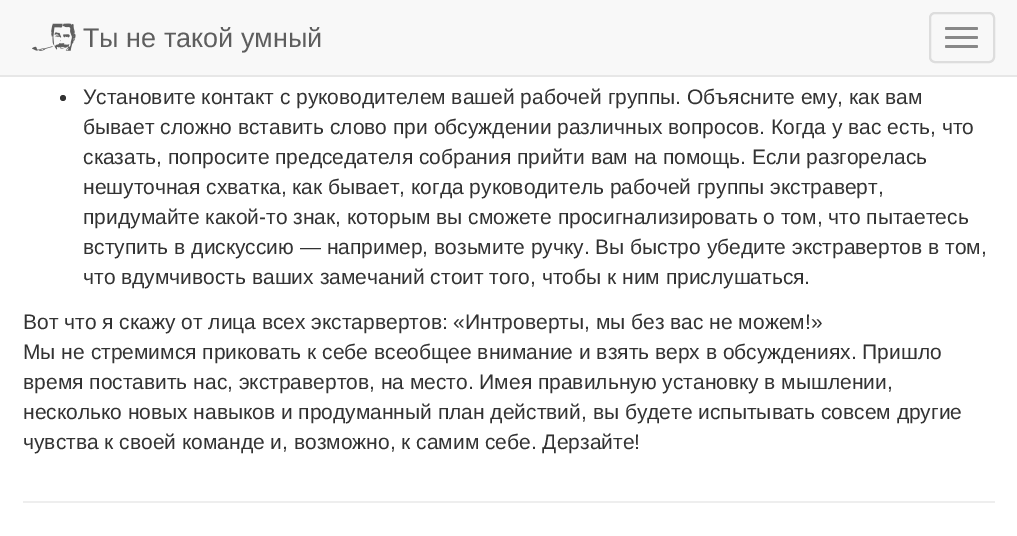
%!PS
<< /PageSize [1017 536] >> setpagedevice
/rgb { 3 { 255 div 3 1 roll } repeat setrgbcolor } def
/font { [ exch dup neg 0 0 3 -1 roll 0 0 ] selectfont } def
/text { moveto show } def
/circle { newpath 0 360 arc closepath } def
/roundrect { 5 dict begin { /r /h /w /y /x } { exch def } forall
  x r add y moveto x w add y 2 copy h add r arct x w add y h add x 1 index r arct
  x y h add x y r arct x y 2 copy exch w add exch r arct closepath end } def
/picture { 5 dict begin { /h /w /y /x /name } { exch def } forall
  gsave x y translate w h scale
  w h 8 [w 0 0 h 0 0] name (r) file false 3 colorimage grestore end } def
0 536 translate 1 -1 scale
4 setmiterlimit
255 255 255 rgb
0 0 1017 536 rectfill
248 248 248 rgb
0 0 1017 75 rectfill
231 231 231 rgb
0 75 1017 2 rectfill
(img_01.rgb) 32 23 44 28 picture
221 221 221 rgb
2 setlinewidth
930 13 64 49 5 roundrect stroke
136 136 136 rgb
945 27 33 3 1.5 roundrect fill
945 36 33 3 1.5 roundrect fill
945 45 33 3 1.5 roundrect fill
51 51 51 rgb
63 98 3 circle fill
238 238 238 rgb
23 501 972 2 rectfill
/LiberationSans-Regular 27 font
94 94 94 rgb
(Ты не такой умный) 83 47 text
/LiberationSans-Regular 21 font
51 51 51 rgb
(Установите контакт с руководителем вашей рабочей группы. Объясните ему, как вам) 83 104 text
(бывает сложно вставить слово при обсуждении различных вопросов. Когда у вас есть, что) 83 134 text
(сказать, попросите председателя собрания прийти вам на помощь. Если разгорелась) 83 164 text
(нешуточная схватка, как бывает, когда руководитель рабочей группы экстраверт,) 83 194 text
(придумайте какой-то знак, которым вы сможете просигнализировать о том, что пытаетесь) 83 224 text
(вступить в дискуссию — например, возьмите ручку. Вы быстро убедите экстравертов в том,) 83 254 text
(что вдумчивость ваших замечаний стоит того, чтобы к ним прислушаться.) 83 284 text
(Вот что я скажу от лица всех экстарвертов: «Интроверты, мы без вас не можем!») 23 329 text
(Мы не стремимся приковать к себе всеобщее внимание и взять верх в обсуждениях. Пришло) 23 359 text
(время поставить нас, экстравертов, на место. Имея правильную установку в мышлении,) 23 389 text
(несколько новых навыков и продуманный план действий, вы будете испытывать совсем другие) 23 419 text
(чувства к своей команде и, возможно, к самим себе. Дерзайте!) 23 449 text
showpage
